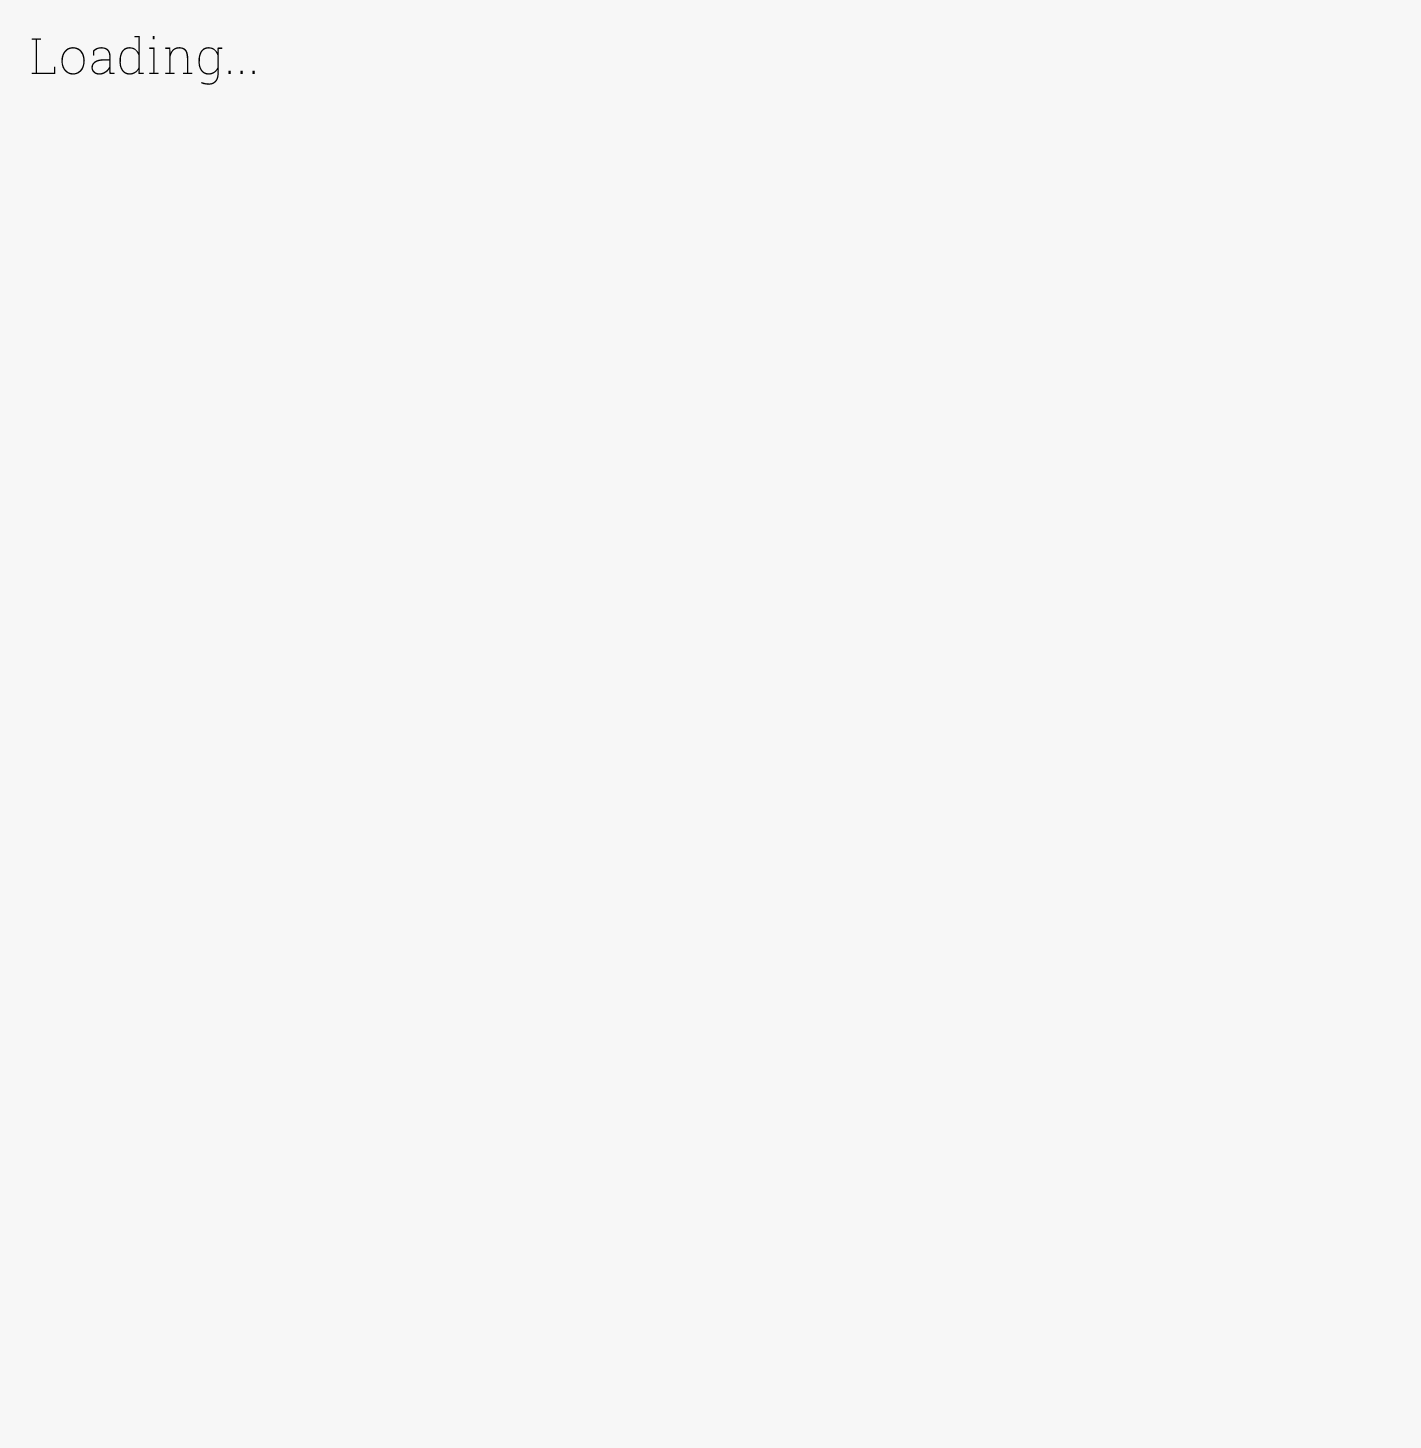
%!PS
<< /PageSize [1421 1448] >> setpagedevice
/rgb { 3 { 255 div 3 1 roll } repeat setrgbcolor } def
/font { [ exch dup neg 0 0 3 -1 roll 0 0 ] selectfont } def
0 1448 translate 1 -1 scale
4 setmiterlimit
247 247 247 rgb
0 0 1421 1448 rectfill
/RobotoSlab-Thin 50 font
0 0 0 rgb
30 74 moveto 1 0 (Loading...) ashow
showpage
